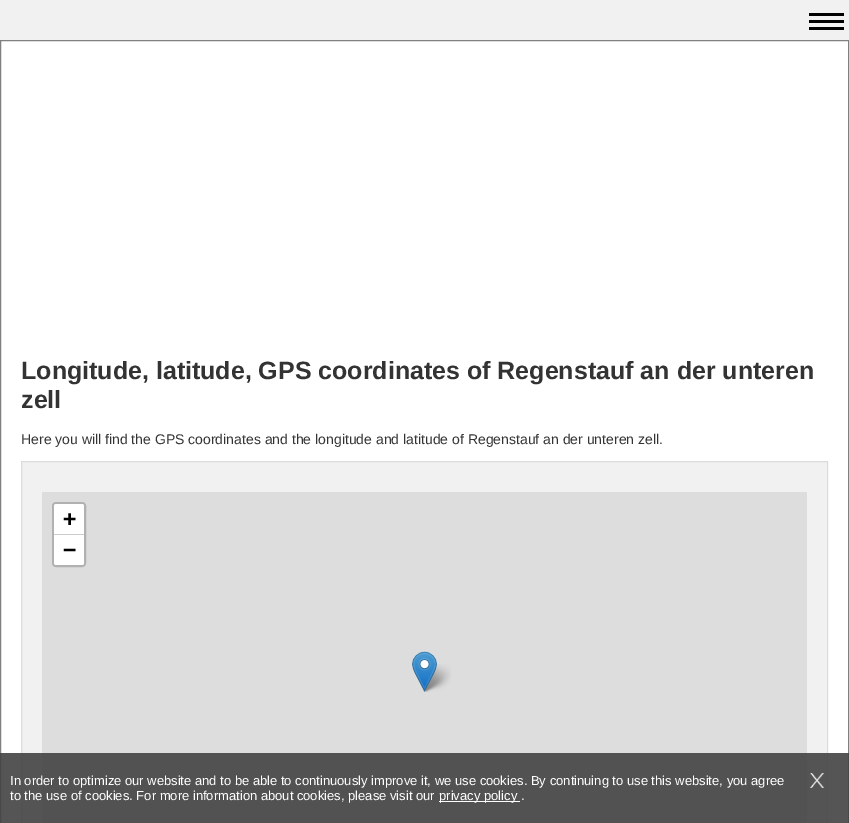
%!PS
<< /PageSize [849 823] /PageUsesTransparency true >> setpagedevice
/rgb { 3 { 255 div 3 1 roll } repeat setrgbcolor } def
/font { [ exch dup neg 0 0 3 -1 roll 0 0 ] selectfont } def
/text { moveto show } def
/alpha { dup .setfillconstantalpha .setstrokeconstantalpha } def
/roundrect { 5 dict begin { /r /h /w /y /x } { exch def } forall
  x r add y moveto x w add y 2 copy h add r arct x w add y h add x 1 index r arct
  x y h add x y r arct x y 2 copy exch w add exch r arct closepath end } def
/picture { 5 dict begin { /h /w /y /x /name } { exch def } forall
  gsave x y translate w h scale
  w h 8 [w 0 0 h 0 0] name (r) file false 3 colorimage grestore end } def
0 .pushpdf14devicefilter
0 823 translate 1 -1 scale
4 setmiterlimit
255 255 255 rgb
0 0 849 823 rectfill
241 241 241 rgb
0 0 849 40 rectfill
0 0 0 rgb
809 13 35 3 rectfill
809 20 35 3 rectfill
809 27 35 3 rectfill
128 128 128 rgb
0.5 40.5 848 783 rectstroke
241 241 241 rgb
21.5 461.5 moveto 806 0 rlineto 0 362 rlineto -806 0 rlineto closepath gsave fill grestore
220 220 220 rgb
stroke
221 221 221 rgb
42 492 765 331 rectfill
177 177 177 rgb
2 setlinewidth
53 503 32 63 3 roundrect stroke
255 255 255 rgb
56 504 moveto 26 0 rlineto 1 0 2 1 2 2 rcurveto 0 29 rlineto -30 0 rlineto 0 -29 rlineto 0 -1 1 -2 2 -2 rcurveto closepath fill
204 204 204 rgb
54 534 30 1 rectfill
255 255 255 rgb
54 535 moveto 30 0 rlineto 0 28 rlineto 0 1 -1 2 -2 2 rcurveto -26 0 rlineto -1 0 -2 -1 -2 -2 rcurveto closepath fill
(img_02.rgb) 422 664 29 28 picture
(img_01.rgb) 412 651 25 41 picture
0.9 alpha
67 67 67 rgb
0 753 849 70 rectfill
1 alpha
255 255 255 rgb
439 801 81 1 rectfill
(img_03.rgb) 810 773 14 15 picture
/LiberationSans-Bold 25 font
51 51 51 rgb
(Longitude, latitude, GPS coordinates of Regenstauf an der unteren) 21 379 text
(zell) 21 408 text
/LiberationSans-Regular 14 font
(Here you will find the GPS coordinates and the longitude and latitude of Regenstauf an der unteren zell.) 21 444 text
/DejaVuSansMono-Bold 22 font
0 0 0 rgb
(+) 63 526 text
(−) 63 557 text
/LiberationSans-Regular 13 font
255 255 255 rgb
(In order to optimize our website and to be able to continuously improve it, we use cookies. By continuing to use this website, you agree) 10 785 text
(to the use of cookies. For more information about cookies, please visit our) 10 800 text
(privacy policy .) 439 800 text
.poppdf14devicefilter showpage
